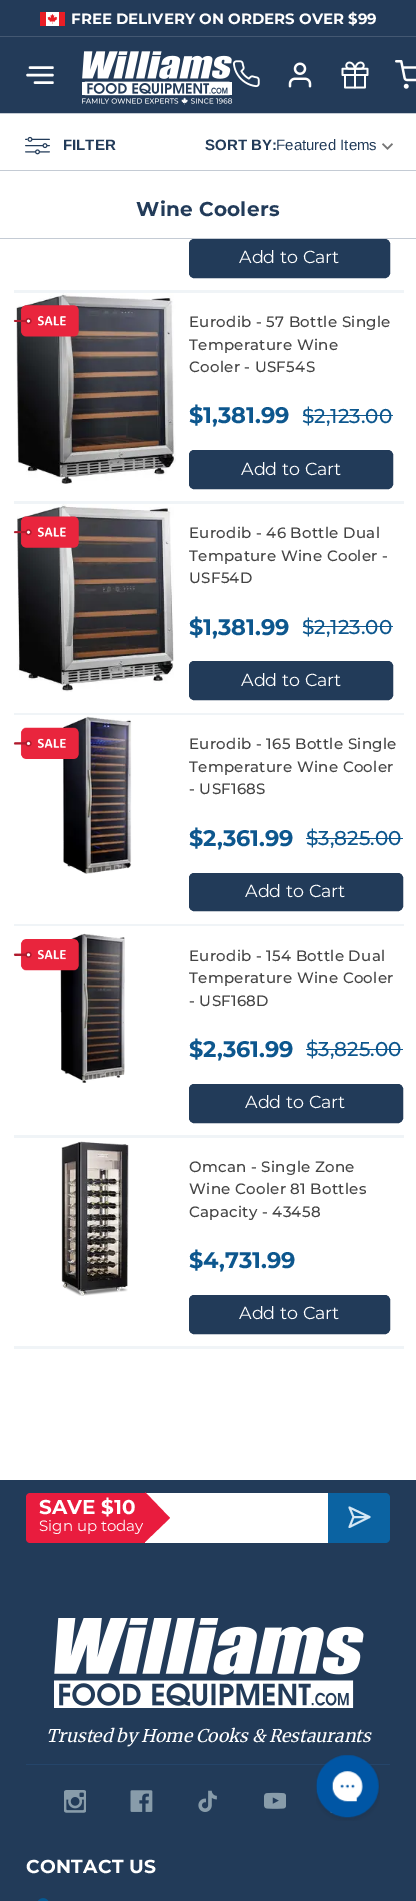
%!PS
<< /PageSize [416 1901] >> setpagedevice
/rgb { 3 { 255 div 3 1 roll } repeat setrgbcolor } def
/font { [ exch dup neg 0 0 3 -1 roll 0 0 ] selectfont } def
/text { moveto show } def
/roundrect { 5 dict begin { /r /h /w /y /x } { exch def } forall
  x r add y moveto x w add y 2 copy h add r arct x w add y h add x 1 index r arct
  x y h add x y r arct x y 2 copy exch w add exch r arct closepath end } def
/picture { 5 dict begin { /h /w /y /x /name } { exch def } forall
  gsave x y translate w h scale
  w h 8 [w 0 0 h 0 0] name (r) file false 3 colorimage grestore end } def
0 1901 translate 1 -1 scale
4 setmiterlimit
255 255 255 rgb
0 0 416 1901 rectfill
35 59 89 rgb
0 0 416 113 rectfill
68 88 114 rgb
0 36 416 1 rectfill
(img_01.rgb) 40 12 25 14 picture
255 255 255 rgb
2.5 setlinewidth
1 setlinecap
1 setlinejoin
27.5 75 moveto 25 0 rlineto 30 67.5 moveto 22.5 0 rlineto 35 82.5 moveto 17.5 0 rlineto stroke
(img_02.rgb) 82 51 151 54 picture
(img_03.rgb) 233 60 27 28 picture
(img_04.rgb) 288 62 24 26 picture
(img_05.rgb) 341 61 28 28 picture
(img_06.rgb) 395 60 21 29 picture
196 203 212 rgb
0 113 416 1 rectfill
0 238 416 1 rectfill
0 170 416 1 rectfill
(img_07.rgb) 25 136 25 19 picture
(img_08.rgb) 382 143 11 7 picture
240 244 247 rgb
14 290 390 3 rectfill
34 59 89 rgb
189.5 239.5 200 38 4.5 roundrect gsave fill grestore
1 setlinewidth
0 setlinecap
0 setlinejoin
stroke
240 244 247 rgb
14 501 390 3 rectfill
(img_09.rgb) 16 293 160 191 picture
(img_10.rgb) 13 305 66 32 picture
13 87 142 rgb
303 415 90 1 rectfill
34 59 89 rgb
189.5 450.5 203 38 4.5 roundrect gsave fill grestore
stroke
240 244 247 rgb
14 713 390 2 rectfill
(img_11.rgb) 17 504 157 188 picture
(img_12.rgb) 13 516 66 32 picture
13 87 142 rgb
303 626 90 1 rectfill
34 59 89 rgb
189.5 661.5 203 38 4.5 roundrect gsave fill grestore
stroke
240 244 247 rgb
14 924 390 2 rectfill
(img_14.rgb) 62 716 70 158 picture
(img_13.rgb) 13 727 66 32 picture
13 87 142 rgb
306 838 97 1 rectfill
34 59 89 rgb
189.5 873.5 213 37 4.5 roundrect gsave fill grestore
stroke
240 244 247 rgb
14 1135 390 3 rectfill
(img_16.rgb) 60 933 65 150 picture
(img_15.rgb) 13 939 66 32 picture
13 87 142 rgb
306 1049 97 1 rectfill
34 59 89 rgb
189.5 1084.5 213 38 4.5 roundrect gsave fill grestore
stroke
240 244 247 rgb
14 1346 390 3 rectfill
(img_17.rgb) 61 1141 68 155 picture
34 59 89 rgb
189.5 1295.5 200 38 4.5 roundrect gsave fill grestore
stroke
0 1480 416 421 rectfill
233 28 62 rgb
30 1493 moveto 115 0 rlineto 0 50 rlineto -115 0 rlineto -2 0 -4 -2 -4 -4 rcurveto 0 -42 rlineto 0 -2 2 -4 4 -4 rcurveto closepath fill
255 255 255 rgb
145 1493 183 50 rectfill
233 28 62 rgb
145 1542 moveto 0 -50 rlineto 25 26 rlineto closepath fill
11 99 162 rgb
328 1493 moveto 57 0 rlineto 3 0 5 2 5 5 rcurveto 0 40 rlineto 0 3 -2 5 -5 5 rcurveto -57 0 rlineto closepath fill
213 231 244 rgb
1.9 setlinewidth
1 setlinecap
1 setlinejoin
369.5 1517 moveto -16 0 rlineto 369.5 1517 moveto -20 10 rlineto 4 -10 rlineto -4 -9.5 rlineto closepath stroke
(img_18.rgb) 54 1618 310 90 picture
37 69 106 rgb
26 1764 364 1 rectfill
(img_19.rgb) 64 1790 22 23 picture
(img_20.rgb) 130 1790 23 22 picture
(img_21.rgb) 198 1790 19 22 picture
(img_22.rgb) 264 1792 22 17 picture
(img_23.rgb) 330 1811 3 2 picture
(img_24.rgb) 38 1898 11 3 picture
(img_25.rgb) 316 1755 64 66 picture
/Montserrat-Bold 15 font
255 255 255 rgb
(FREE DELIVERY ON ORDERS OVER $99) 71 24 text
/LiberationSans-Bold 15 font
34 59 89 rgb
(FILTER) 63 150 text
(SORT BY:) 205 150 text
/LiberationSans-Regular 15 font
(Featured Items) 276 150 text
/Montserrat-Bold 20 font
136 216 moveto 0.3 0 (Wine Coolers) ashow
/Montserrat-Regular 17.5 font
255 255 255 rgb
(Add to Cart) 239 263 text
/Montserrat-Medium 15 font
68 68 68 rgb
189 327 moveto 0.3 0 (Eurodib - 57 Bottle Single) ashow
189 350 moveto 0.3 0 (Temperature Wine) ashow
189 372 moveto 0.3 0 (Cooler - USF54S) ashow
/Montserrat-Bold 22.5 font
13 87 142 rgb
($1,381.99) 189 423 text
/Montserrat-Medium 20 font
($2,123.00) 302 423 text
/Montserrat-Regular 17.5 font
255 255 255 rgb
(Add to Cart) 241 475 text
/Montserrat-Medium 15 font
68 68 68 rgb
189 538 moveto 0.3 0 (Eurodib - 46 Bottle Dual) ashow
189 561 moveto 0.3 0 (Tempature Wine Cooler -) ashow
189 583 moveto 0.3 0 (USF54D) ashow
/Montserrat-Bold 22.5 font
13 87 142 rgb
($1,381.99) 189 635 text
/Montserrat-Medium 20 font
($2,123.00) 302 634 text
/Montserrat-Regular 17.5 font
255 255 255 rgb
(Add to Cart) 241 686 text
/Montserrat-Medium 15 font
68 68 68 rgb
189 749 moveto 0.3 0 (Eurodib - 165 Bottle Single) ashow
189 772 moveto 0.3 0 (Temperature Wine Cooler) ashow
189 794 moveto 0.3 0 (- USF168S) ashow
/Montserrat-Bold 22.5 font
13 87 142 rgb
($2,361.99) 189 846 text
/Montserrat-Medium 20 font
($3,825.00) 306 845 text
/Montserrat-Regular 17.5 font
255 255 255 rgb
(Add to Cart) 245 897 text
/Montserrat-Medium 15 font
68 68 68 rgb
189 961 moveto 0.3 0 (Eurodib - 154 Bottle Dual) ashow
189 983 moveto 0.3 0 (Temperature Wine Cooler) ashow
189 1006 moveto 0.3 0 (- USF168D) ashow
/Montserrat-Bold 22.5 font
13 87 142 rgb
($2,361.99) 189 1057 text
/Montserrat-Medium 20 font
($3,825.00) 306 1056 text
/Montserrat-Regular 17.5 font
255 255 255 rgb
(Add to Cart) 245 1108 text
/Montserrat-Medium 15 font
68 68 68 rgb
189 1172 moveto 0.3 0 (Omcan - Single Zone) ashow
189 1194 moveto 0.3 0 (Wine Cooler 81 Bottles) ashow
189 1217 moveto 0.3 0 (Capacity - 43458) ashow
/Montserrat-Bold 22.5 font
13 87 142 rgb
($4,731.99) 189 1268 text
/Montserrat-Regular 17.5 font
255 255 255 rgb
(Add to Cart) 239 1319 text
/Montserrat-Bold 20 font
(SAVE $10) 39 1514 text
/Montserrat-Regular 15 font
(Sign up today) 39 1531 text
/Merriweather-LightItalic 17.5 font
(Trusted by Home Cooks & Restaurants) 46 1742 text
/Montserrat-Bold 18.75 font
26 1873 moveto 0.3 0 (CONTACT US) ashow
showpage
